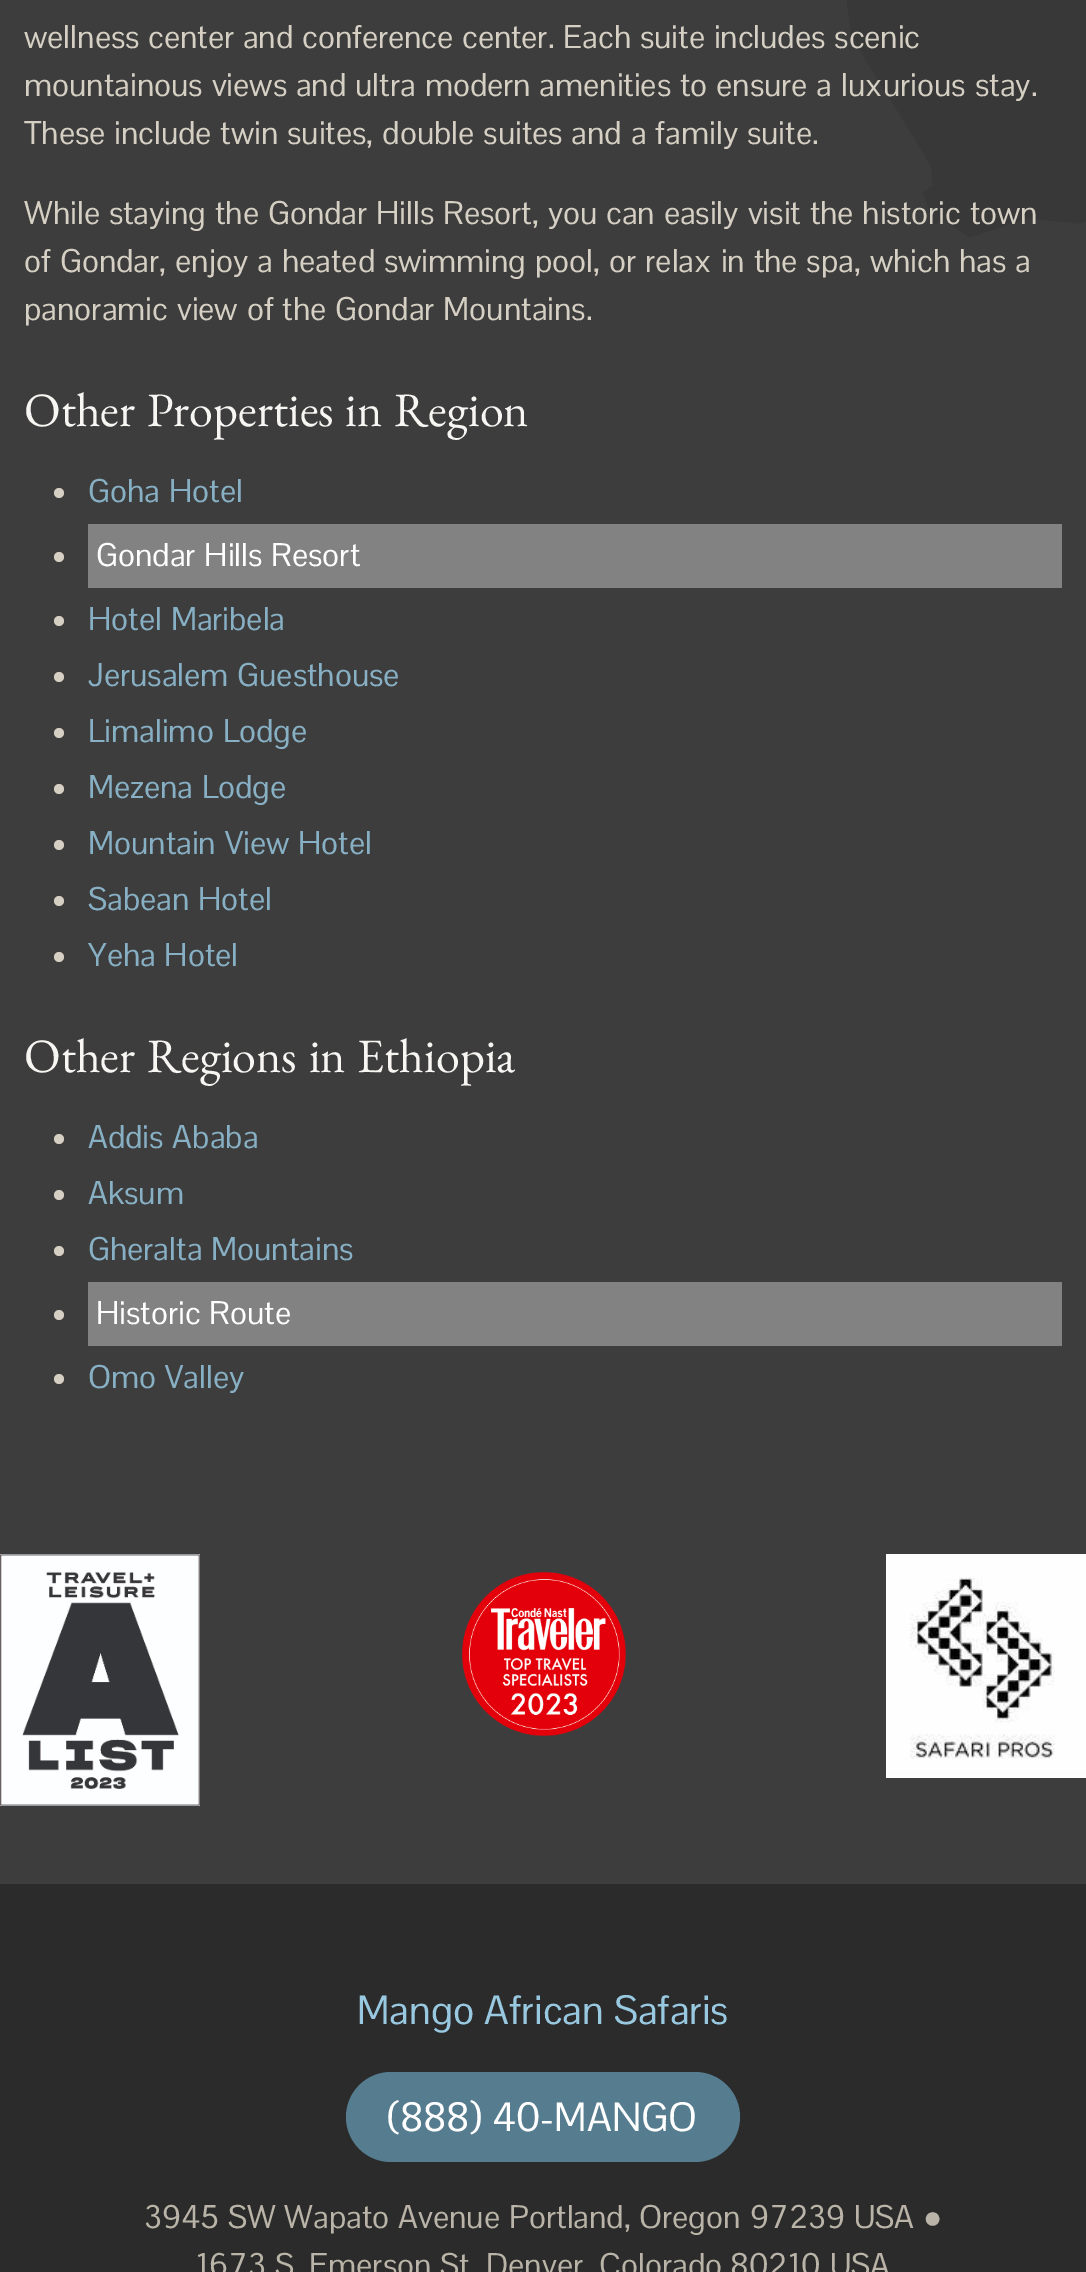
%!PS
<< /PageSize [1086 2272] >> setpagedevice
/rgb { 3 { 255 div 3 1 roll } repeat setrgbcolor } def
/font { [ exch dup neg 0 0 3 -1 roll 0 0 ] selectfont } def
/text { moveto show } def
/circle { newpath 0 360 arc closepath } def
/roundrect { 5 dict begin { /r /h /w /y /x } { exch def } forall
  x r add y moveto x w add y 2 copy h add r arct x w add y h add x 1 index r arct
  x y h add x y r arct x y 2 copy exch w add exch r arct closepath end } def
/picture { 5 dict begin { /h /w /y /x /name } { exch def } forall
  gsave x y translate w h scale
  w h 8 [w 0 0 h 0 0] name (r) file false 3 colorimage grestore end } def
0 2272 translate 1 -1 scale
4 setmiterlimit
62 61 61 rgb
0 0 1086 2272 rectfill
(img_01.rgb) 847 0 239 237 picture
213 208 195 rgb
59 493 5 circle fill
130 130 130 rgb
88 524 974 64 rectfill
213 208 195 rgb
59 557 5 circle fill
59 621 5 circle fill
59 677 5 circle fill
59 733 5 circle fill
59 789 5 circle fill
59 845 5 circle fill
59 901 5 circle fill
59 957 5 circle fill
59 1139 5 circle fill
59 1195 5 circle fill
59 1251 5 circle fill
130 130 130 rgb
88 1282 974 64 rectfill
213 208 195 rgb
59 1315 5 circle fill
59 1379 5 circle fill
(img_02.rgb) 0 1554 200 252 picture
(img_03.rgb) 462 1572 164 164 picture
(img_04.rgb) 886 1554 200 224 picture
43 43 43 rgb
0 1884 1086 388 rectfill
86 124 143 rgb
346 2072 394 90 45 roundrect fill
/PontanoSans-Regular 32 font
213 208 195 rgb
24 48 moveto 2 0 32 (wellness center and conference center. Each suite includes scenic) widthshow
24 96 moveto 2 0 32 (mountainous views and ultra modern amenities to ensure a luxurious stay.) widthshow
24 144 moveto 2 0 32 (These include twin suites, double suites and a family suite.) widthshow
24 224 moveto 2 0 32 (While staying the Gondar Hills Resort, you can easily visit the historic town) widthshow
24 272 moveto 2 0 32 (of Gondar, enjoy a heated swimming pool, or relax in the spa, which has a) widthshow
24 320 moveto 2 0 32 (panoramic view of the Gondar Mountains.) widthshow
/EBGaramond-Regular 48 font
247 246 243 rgb
24 426 moveto 2 0 32 (Other Properties in Region) widthshow
/PontanoSans-Regular 32 font
135 176 196 rgb
88 502 moveto 2 0 32 (Goha Hotel) widthshow
255 255 255 rgb
96 566 moveto 2 0 32 (Gondar Hills Resort) widthshow
135 176 196 rgb
88 630 moveto 2 0 32 (Hotel Maribela) widthshow
88 686 moveto 2 0 32 (Jerusalem Guesthouse) widthshow
88 742 moveto 2 0 32 (Limalimo Lodge) widthshow
88 798 moveto 2 0 32 (Mezena Lodge) widthshow
88 854 moveto 2 0 32 (Mountain View Hotel) widthshow
88 910 moveto 2 0 32 (Sabean Hotel) widthshow
88 966 moveto 2 0 32 (Yeha Hotel) widthshow
/EBGaramond-Regular 48 font
247 246 243 rgb
24 1072 moveto 2 0 32 (Other Regions in Ethiopia) widthshow
/PontanoSans-Regular 32 font
135 176 196 rgb
88 1148 moveto 2 0 32 (Addis Ababa) widthshow
(Aksum) 88 1204 text
88 1260 moveto 2 0 32 (Gheralta Mountains) widthshow
255 255 255 rgb
96 1324 moveto 2 0 32 (Historic Route) widthshow
135 176 196 rgb
88 1388 moveto 2 0 32 (Omo Valley) widthshow
/PontanoSans-Regular 40 font
153 201 225 rgb
357 2024 moveto 2 0 32 (Mango African Safaris) widthshow
255 255 255 rgb
388 2131 moveto 2 0 32 (\(888\) 40-MANGO) widthshow
/PontanoSans-Regular 32 font
185 180 167 rgb
144 2228 moveto 2 0 32 (3945 SW Wapato Avenue) widthshow
(Portland,) 509 2228 text
(Oregon) 639 2228 text
(97239) 750 2228 text
(USA) 854 2228 text
/LiberationSans-Regular 32 font
(●) 923 2228 text
/PontanoSans-Regular 32 font
196 2276 moveto 2 0 32 (1673 S. Emerson St) widthshow
(Denver) 486 2276 text
(Colorado) 599 2276 text
(80210) 730 2276 text
(USA) 830 2276 text
showpage
